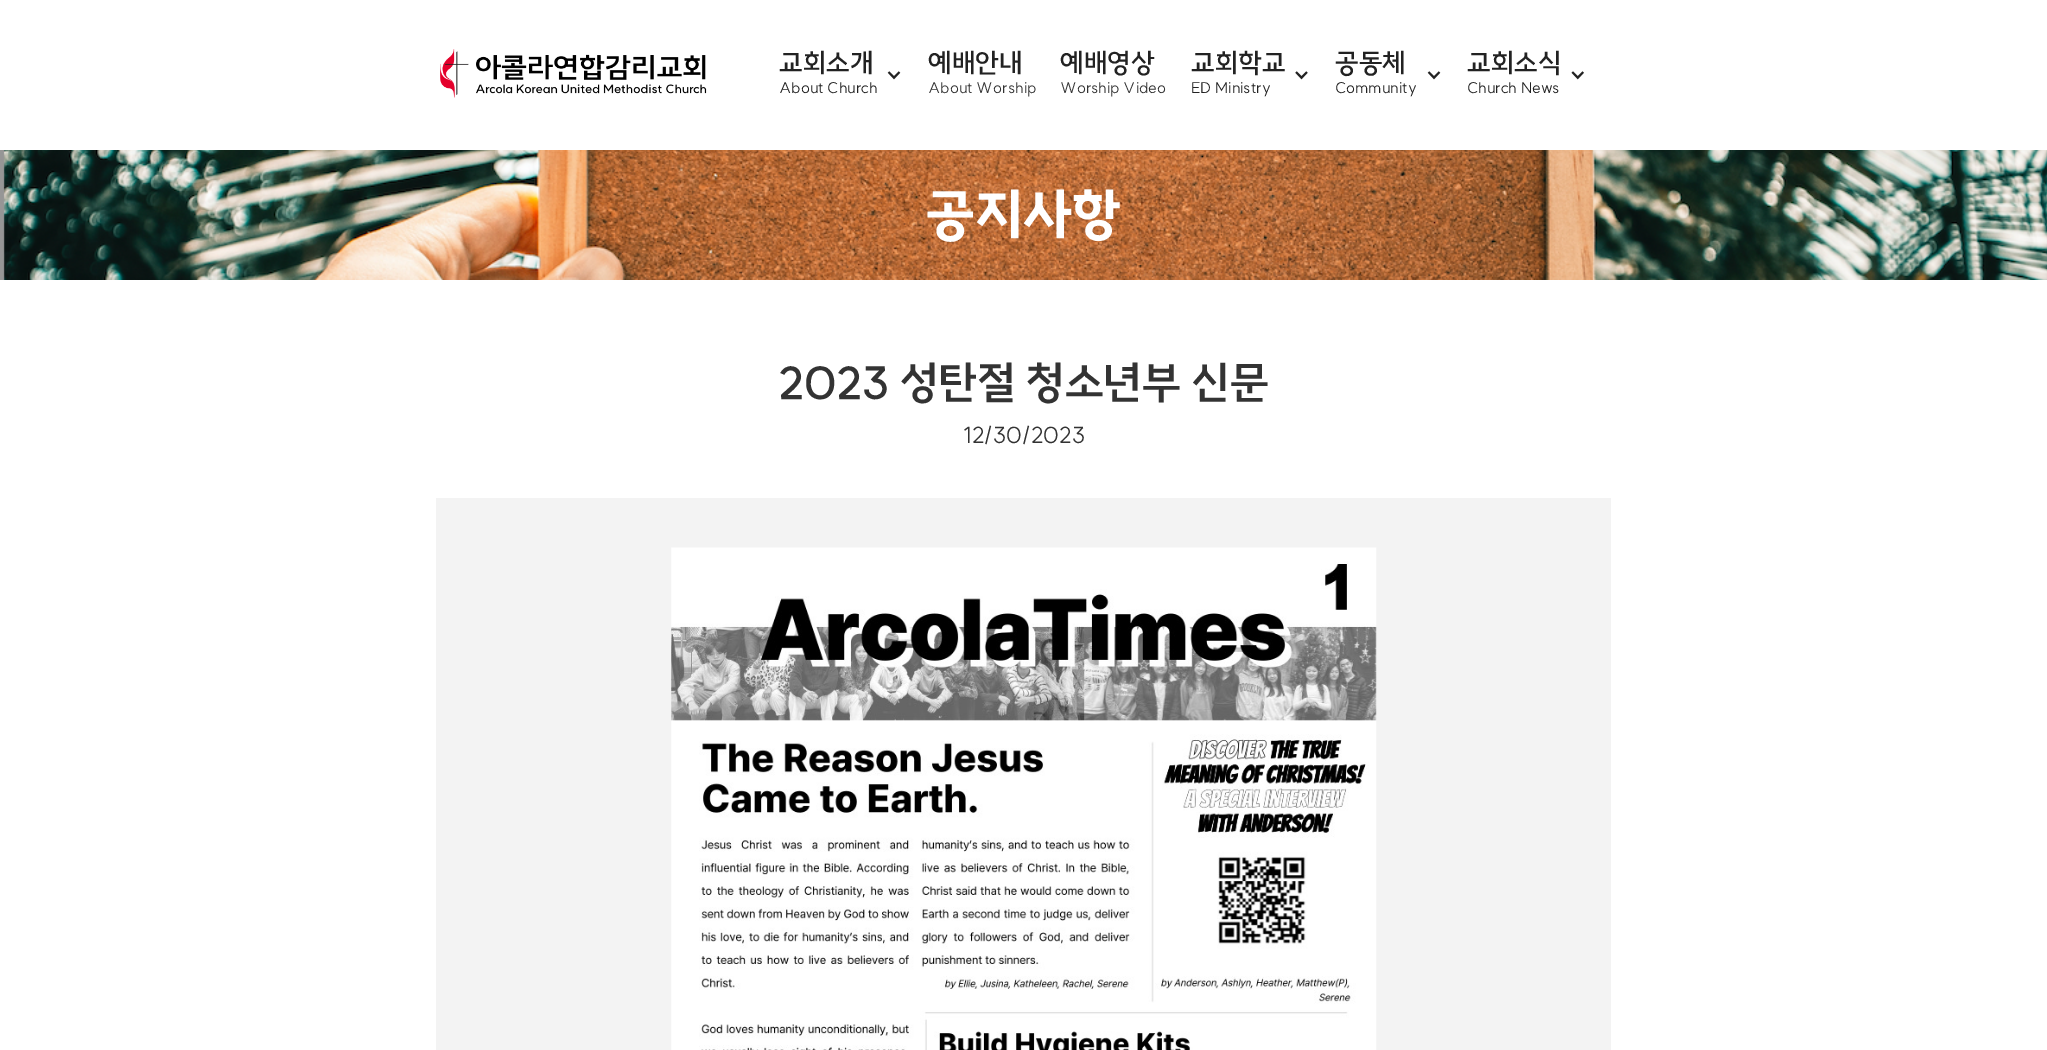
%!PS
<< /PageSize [2047 1050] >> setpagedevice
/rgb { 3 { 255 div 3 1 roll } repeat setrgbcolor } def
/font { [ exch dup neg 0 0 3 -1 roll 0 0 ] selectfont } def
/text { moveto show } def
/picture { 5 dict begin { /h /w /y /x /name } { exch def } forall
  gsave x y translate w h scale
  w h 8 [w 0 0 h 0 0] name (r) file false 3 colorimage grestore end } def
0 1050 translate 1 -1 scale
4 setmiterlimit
255 255 255 rgb
0 0 2047 1050 rectfill
(img_01.rgb) 440 49 267 49 picture
(img_02.rgb) 887 71 14 9 picture
(img_03.rgb) 1295 71 13 9 picture
(img_02.rgb) 1427 71 14 9 picture
(img_04.rgb) 1571 71 13 9 picture
(img_05.rgb) 0 150 2047 130 picture
243 243 243 rgb
436 498 1175 552 rectfill
(img_06.rgb) 671 547 706 503 picture
/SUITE-SemiBold 27.5 font
34 34 34 rgb
(교회소개) 779 73 text
/SUITE-Regular 15 font
(About Church) 779 93 text
/SUITE-SemiBold 27.5 font
(예배안내) 928 73 text
/SUITE-Regular 15 font
51 51 51 rgb
(About Worship) 928 93 text
/SUITE-SemiBold 27.5 font
34 34 34 rgb
(예배영상) 1060 73 text
/SUITE-Regular 15 font
51 51 51 rgb
(Worship Video) 1060 93 text
/SUITE-SemiBold 27.5 font
34 34 34 rgb
(교회학교) 1191 73 text
/SUITE-Regular 15 font
(ED Ministry) 1191 93 text
/SUITE-SemiBold 27.5 font
(공동체) 1335 73 text
/SUITE-Regular 15 font
(Community) 1335 93 text
/SUITE-SemiBold 27.5 font
(교회소식) 1467 73 text
/SUITE-Regular 15 font
(Church News) 1467 93 text
/SUITE-Black 56 font
255 255 255 rgb
(공지사항) 926 235 text
/SUITE-Bold 45 font
51 51 51 rgb
(2023 성탄절 청소년부 신문) 778 399 text
/SUITE-Regular 22.5 font
(12/30/2023) 963 443 text
showpage
